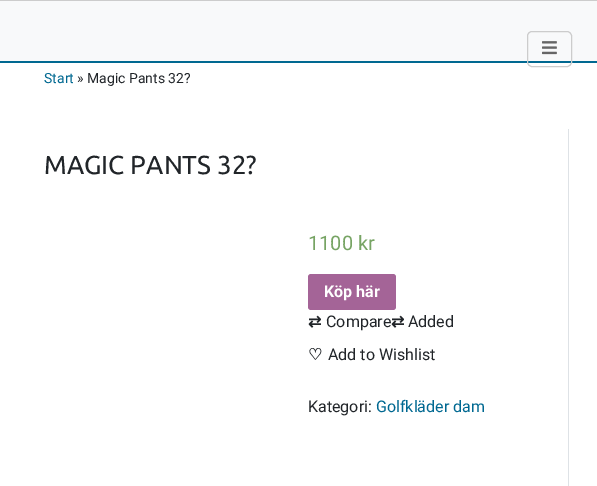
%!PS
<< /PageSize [597 486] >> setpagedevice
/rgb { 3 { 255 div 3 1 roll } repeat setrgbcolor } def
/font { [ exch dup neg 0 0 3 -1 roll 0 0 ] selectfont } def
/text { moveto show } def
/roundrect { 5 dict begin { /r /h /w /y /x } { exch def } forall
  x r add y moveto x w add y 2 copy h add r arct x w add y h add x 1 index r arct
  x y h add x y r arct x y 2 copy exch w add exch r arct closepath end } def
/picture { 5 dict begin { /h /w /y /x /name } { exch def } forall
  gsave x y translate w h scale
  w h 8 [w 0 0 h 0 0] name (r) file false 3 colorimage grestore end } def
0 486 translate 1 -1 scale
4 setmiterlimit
255 255 255 rgb
0 0 597 486 rectfill
204 204 204 rgb
0 0 597 1 rectfill
248 249 250 rgb
0 1 597 60 rectfill
0 104 145 rgb
0 61 597 2 rectfill
204 204 204 rgb
527.5 31.5 44 35 4.5 roundrect stroke
(img_01.rgb) 542 41 15 14 picture
222 226 230 rgb
568 129 1 357 rectfill
164 100 151 rgb
308 274 88 36 3 roundrect fill
/Roboto-Regular 14 font
0 104 145 rgb
(Start) 44 83 text
33 37 41 rgb
(» Magic Pants 32?) 77 83 text
/Ubuntu-Regular 26 font
(MAGIC PANTS 32?) 44 174 text
/Roboto-Regular 20 font
119 164 100 rgb
(1100 kr) 308 250 text
/Roboto-Bold 16 font
255 255 255 rgb
(Köp här) 324 297 text
/DejaVuSans-Bold 16 font
33 37 41 rgb
(⇄) 308 327 text
/Roboto-Regular 16 font
(Compare) 326 327 text
/DejaVuSans-Bold 16 font
(⇄) 391 327 text
/Roboto-Regular 16 font
(Added) 408 327 text
/DejaVuSans-Bold 16 font
(♡) 308 360 text
/Roboto-Regular 16 font
(Add to Wishlist) 328 360 text
(Kategori:) 308 412 text
0 104 145 rgb
(Golfkläder dam) 376 412 text
showpage
